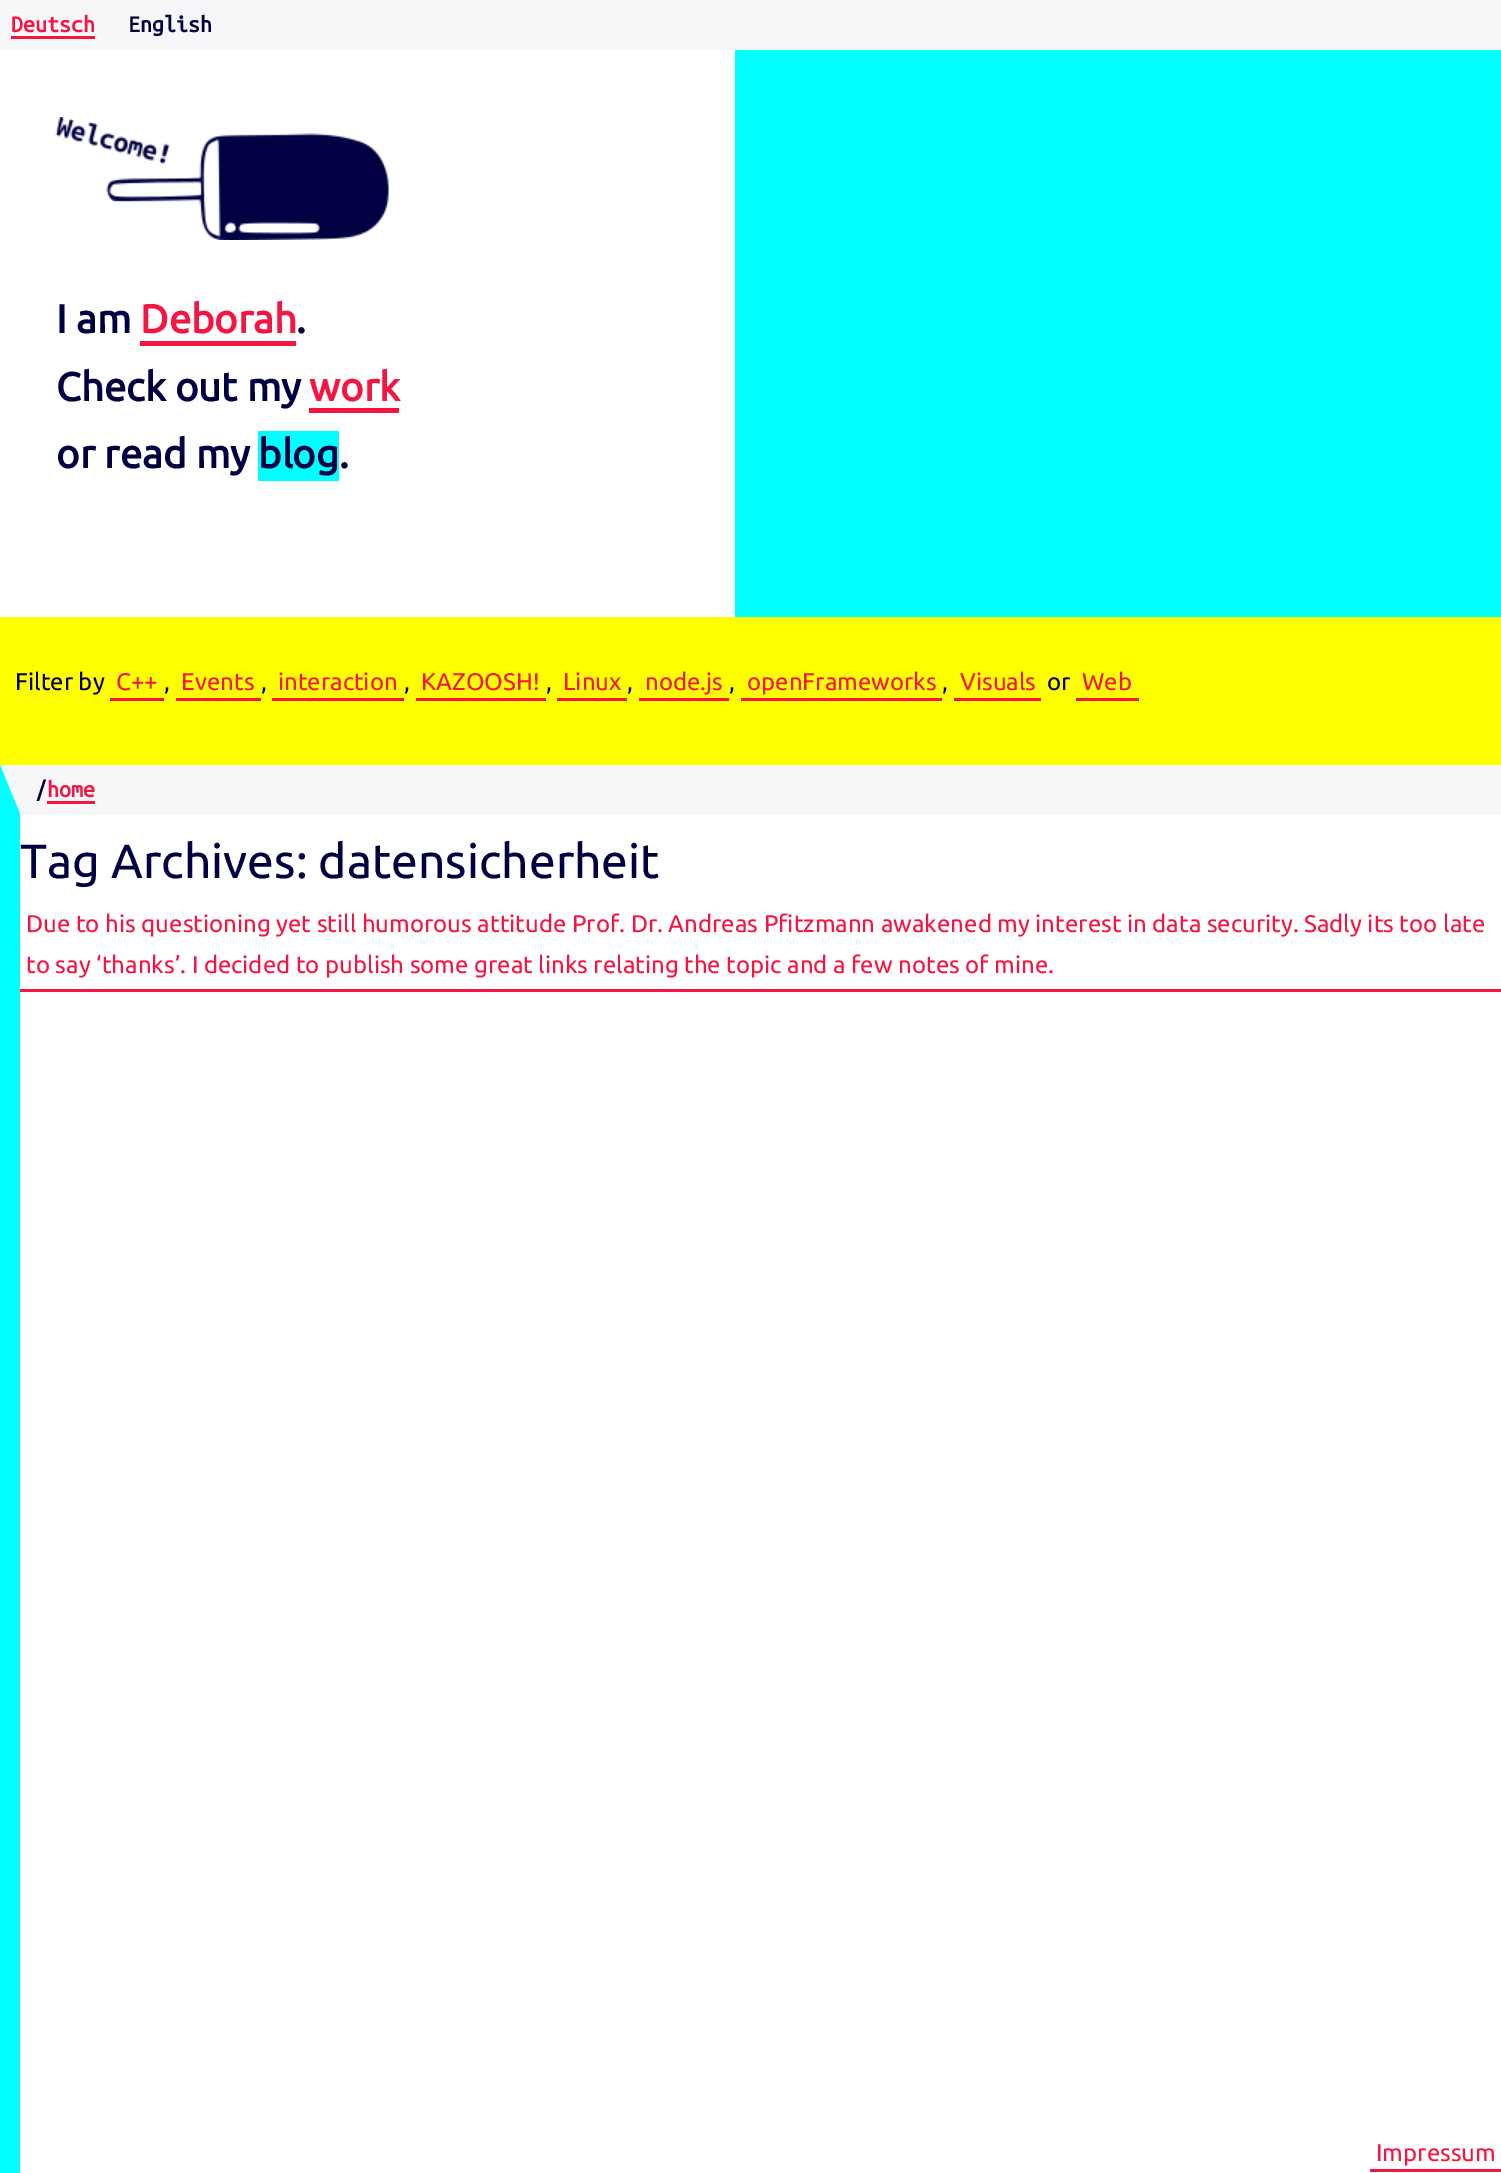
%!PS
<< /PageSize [1501 2173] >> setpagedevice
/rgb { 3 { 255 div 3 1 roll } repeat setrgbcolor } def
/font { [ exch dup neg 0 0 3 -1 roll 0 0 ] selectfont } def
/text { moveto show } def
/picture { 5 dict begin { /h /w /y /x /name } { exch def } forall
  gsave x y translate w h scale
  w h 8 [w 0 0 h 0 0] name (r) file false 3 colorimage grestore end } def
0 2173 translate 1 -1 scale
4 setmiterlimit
255 255 255 rgb
0 0 1501 2173 rectfill
0 255 255 rgb
735 50 766 567 rectfill
247 247 249 rgb
0 0 1501 50 rectfill
244 21 66 rgb
11 36 84 3 rectfill
(img_01.rgb) 55 117 334 123 picture
140 341 156 5 rectfill
309 408 90 5 rectfill
0 255 255 rgb
258 431 81 50 rectfill
255 255 0 rgb
0 617 1501 148 rectfill
244 21 66 rgb
110 698 54 3 rectfill
176 698 85 3 rectfill
272 698 132 3 rectfill
416 698 130 3 rectfill
557 698 70 3 rectfill
639 698 90 3 rectfill
741 698 201 3 rectfill
954 698 87 3 rectfill
1076 698 63 3 rectfill
247 247 249 rgb
0 765 moveto 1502 0 rlineto 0 49 rlineto -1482 0 rlineto closepath fill
0 255 255 rgb
0 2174 moveto 0 -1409 rlineto 20 49 rlineto 0 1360 rlineto closepath fill
247 247 249 rgb
20 814 1481 1 rectfill
244 21 66 rgb
47 801 48 3 rectfill
20 989 1481 3 rectfill
1370 2169 131 3 rectfill
/UbuntuMono-Bold 24 font
(Deutsch) 11 32 text
0 0 66 rgb
(English) 128 32 text
/Ubuntu-Bold 40 font
(I am) 56 333 text
244 21 66 rgb
(Deborah) 140 333 text
0 0 66 rgb
(.) 296 333 text
(Check out my) 56 401 text
244 21 66 rgb
(work) 309 401 text
0 0 66 rgb
(or read my) 56 468 text
(blog.) 258 468 text
/Ubuntu-Regular 24 font
(Filter by) 15 690 text
244 21 66 rgb
(C++) 116 690 text
0 0 66 rgb
(,) 164 690 text
244 21 66 rgb
(Events) 181 690 text
0 0 66 rgb
(,) 261 690 text
244 21 66 rgb
(interaction) 278 690 text
0 0 66 rgb
(,) 404 690 text
244 21 66 rgb
(KAZOOSH!) 421 690 text
0 0 66 rgb
(,) 546 690 text
244 21 66 rgb
(Linux) 563 690 text
0 0 66 rgb
(,) 627 690 text
244 21 66 rgb
(node.js) 645 690 text
0 0 66 rgb
(,) 729 690 text
244 21 66 rgb
(openFrameworks) 747 690 text
0 0 66 rgb
(,) 942 690 text
244 21 66 rgb
(Visuals) 960 690 text
0 0 66 rgb
(or) 1047 690 text
244 21 66 rgb
(Web) 1082 690 text
/UbuntuMono-Bold 24 font
0 0 66 rgb
(/) 35 797 text
244 21 66 rgb
(home) 47 797 text
/Ubuntu-Regular 48 font
0 0 66 rgb
(Tag Archives: datensicherheit) 20 878 text
/Ubuntu-Regular 24 font
244 21 66 rgb
(Due to his questioning yet still humorous attitude Prof. Dr. Andreas Pfitzmann awakened my interest in data security. Sadly its too late) 26 932 text
(to say ‘thanks’. I decided to publish some great links relating the topic and a few notes of mine.) 26 973 text
(Impressum) 1376 2161 text
showpage
